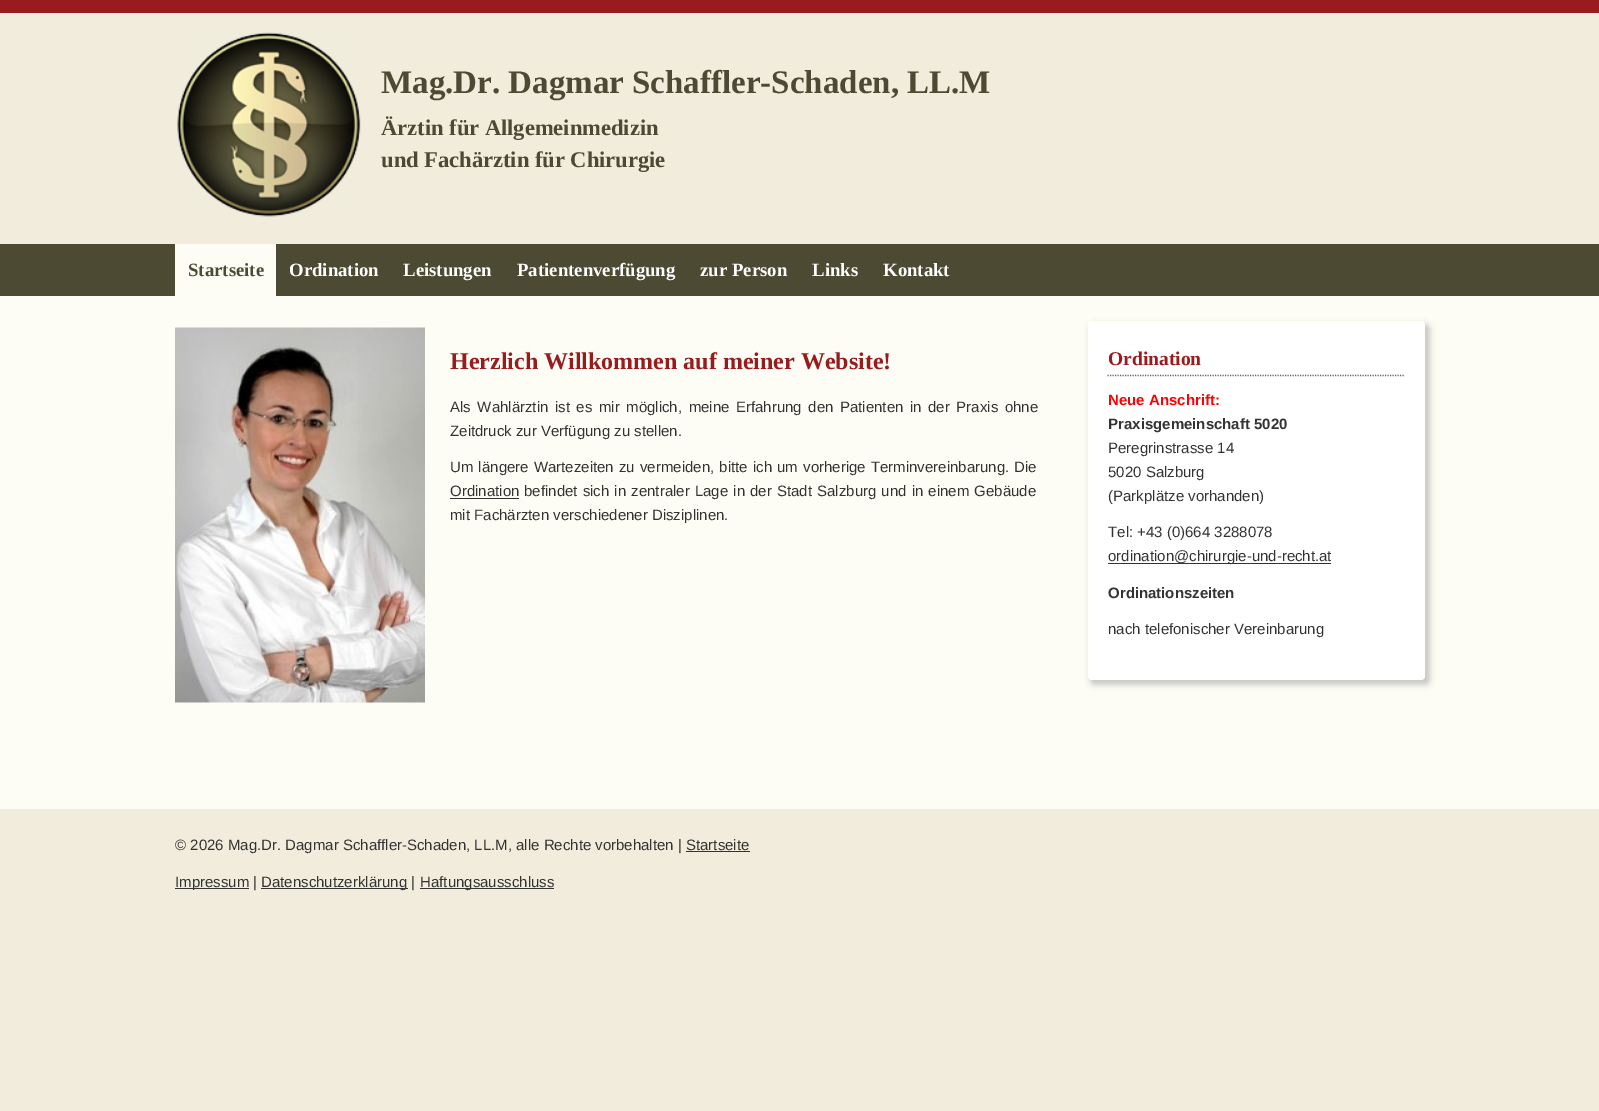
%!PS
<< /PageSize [1599 1111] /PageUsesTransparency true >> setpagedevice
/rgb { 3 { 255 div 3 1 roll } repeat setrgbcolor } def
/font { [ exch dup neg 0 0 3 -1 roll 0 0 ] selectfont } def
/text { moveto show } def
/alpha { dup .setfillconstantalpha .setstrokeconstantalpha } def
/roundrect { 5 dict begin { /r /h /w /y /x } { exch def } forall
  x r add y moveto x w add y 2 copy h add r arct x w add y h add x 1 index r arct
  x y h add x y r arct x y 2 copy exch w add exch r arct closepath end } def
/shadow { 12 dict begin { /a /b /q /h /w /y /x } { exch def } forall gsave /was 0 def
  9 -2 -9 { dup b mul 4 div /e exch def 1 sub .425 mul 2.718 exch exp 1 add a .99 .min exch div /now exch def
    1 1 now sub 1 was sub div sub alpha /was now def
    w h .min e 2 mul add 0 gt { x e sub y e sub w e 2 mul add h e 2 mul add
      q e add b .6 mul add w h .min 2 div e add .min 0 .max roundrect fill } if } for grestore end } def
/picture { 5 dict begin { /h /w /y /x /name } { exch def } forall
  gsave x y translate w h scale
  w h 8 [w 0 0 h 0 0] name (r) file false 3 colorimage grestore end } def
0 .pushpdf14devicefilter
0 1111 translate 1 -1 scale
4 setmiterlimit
241 236 220 rgb
0 0 1599 1111 rectfill
152 27 30 rgb
0 0 1599 13 rectfill
(img_01.rgb) 177 32 184 185 picture
76 74 51 rgb
0 244 1599 52 rectfill
253 253 246 rgb
175 244 101 52 rectfill
0 296 1599 513 rectfill
(img_02.rgb) 175 327 250 376 picture
51 51 51 rgb
450 498 69 1 rectfill
0 0 0 rgb
1090 324 340 361 5 3 0.2 shadow
255 255 255 rgb
1088 321 337 359 4 roundrect fill
102 102 102 rgb
1.2 setlinewidth
[1.25 1.25] 0 setdash
1107.5 375.5 moveto 297.5 0 rlineto stroke
51 51 51 rgb
1108 563 223 1 rectfill
686 851 64 1 rectfill
175 888 74 1 rectfill
261 888 147 1 rectfill
420 888 134 1 rectfill
/LiberationSerif-Bold 33 font
76 74 51 rgb
(Mag.Dr. Dagmar Schaffler-Schaden, LL.M) 381 93 text
/LiberationSerif-Bold 22.5 font
(Ärztin für Allgemeinmedizin) 381 135 text
(und Fachärztin für Chirurgie) 381 167 text
/LiberationSerif-Bold 18.75 font
(Startseite) 188 276 text
255 255 255 rgb
(Ordination) 289 276 text
(Leistungen) 403 276 text
(Patientenverfügung) 517 276 text
(zur Person) 700 276 text
(Links) 812 276 text
(Kontakt) 883 276 text
/LiberationSerif-Bold 24 font
152 27 30 rgb
(Herzlich Willkommen auf meiner Website!) 450 369 text
/LiberationSans-Regular 15 font
51 51 51 rgb
450 412 moveto 2.4 0 32 (Als Wahlärztin ist es mir möglich, meine Erfahrung den Patienten in der Praxis ohne) widthshow
(Zeitdruck zur Verfügung zu stellen.) 450 436 text
450 472 moveto 1 0 32 (Um längere Wartezeiten zu vermeiden, bitte ich um vorherige Terminvereinbarung. Die) widthshow
(Ordination) 450 496 text
524 496 moveto 1 0 32 (befindet sich in zentraler Lage in der Stadt Salzburg und in einem Gebäude) widthshow
(mit Fachärzten verschiedener Disziplinen.) 450 520 text
/LiberationSerif-Bold 19.5 font
152 27 30 rgb
(Ordination) 1108 365 text
/LiberationSans-Bold 15 font
255 0 0 rgb
(Neue Anschrift:) 1108 405 text
51 51 51 rgb
(Praxisgemeinschaft 5020) 1108 429 text
/LiberationSans-Regular 15 font
(Peregrinstrasse 14) 1108 453 text
(5020 Salzburg) 1108 477 text
(\(Parkplätze vorhanden\)) 1108 501 text
(Tel: +43 \(0\)664 3288078) 1108 537 text
(ordination@chirurgie-und-recht.at) 1108 561 text
/LiberationSans-Bold 15 font
(Ordinationszeiten) 1108 598 text
/LiberationSans-Regular 15 font
(nach telefonischer Vereinbarung) 1108 634 text
(© 2026 Mag.Dr. Dagmar Schaffler-Schaden, LL.M, alle Rechte vorbehalten | Startseite) 175 850 text
(Impressum |) 175 887 text
(Datenschutzerklärung |) 261 887 text
(Haftungsausschluss) 420 887 text
.poppdf14devicefilter showpage
